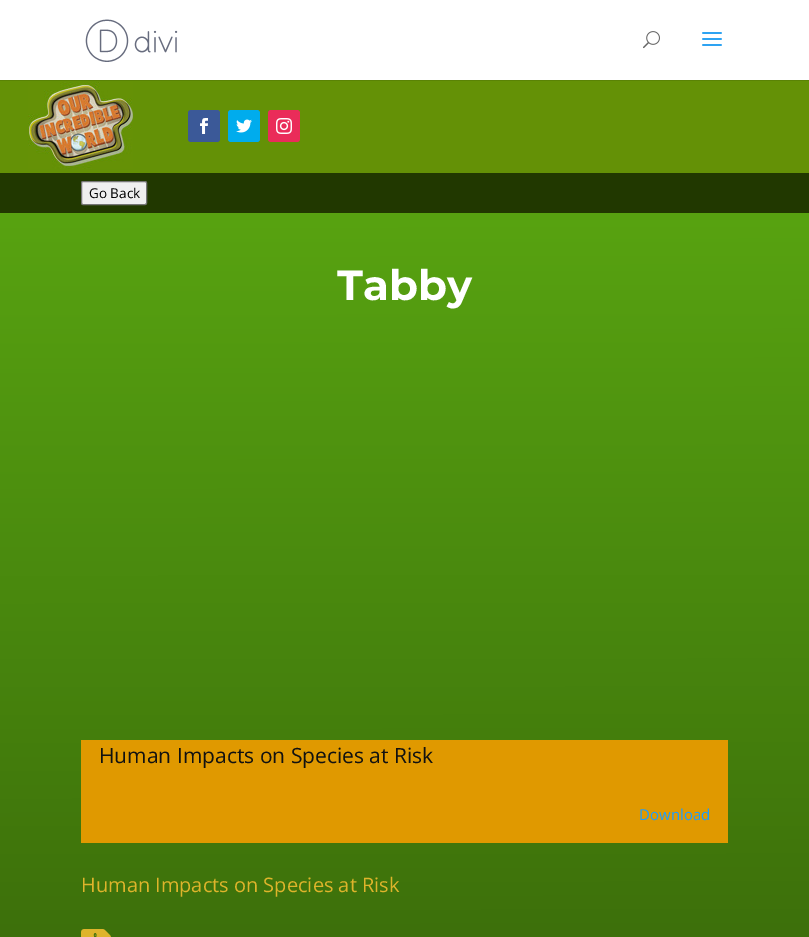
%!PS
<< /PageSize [809 937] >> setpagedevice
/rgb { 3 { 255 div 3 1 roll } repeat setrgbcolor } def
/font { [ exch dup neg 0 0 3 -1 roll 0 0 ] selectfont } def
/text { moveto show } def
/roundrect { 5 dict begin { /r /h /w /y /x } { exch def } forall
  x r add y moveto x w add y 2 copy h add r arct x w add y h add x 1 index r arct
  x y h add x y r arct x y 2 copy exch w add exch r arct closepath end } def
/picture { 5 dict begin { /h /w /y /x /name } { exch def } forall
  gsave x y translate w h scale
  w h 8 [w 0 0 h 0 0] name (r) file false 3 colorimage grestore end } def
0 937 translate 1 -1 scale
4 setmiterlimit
100 145 6 rgb
0 0 809 937 rectfill
90 131 5 rgb
0 80 809 1 rectfill
255 255 255 rgb
0 0 809 80 rectfill
(img_01.rgb) 85 19 93 43 picture
(img_02.rgb) 643 31 17 18 picture
(img_03.rgb) 702 32 20 14 picture
(img_04.rgb) 28 82 105 87 picture
59 89 152 rgb
188 110 32 32 3 roundrect fill
(img_05.rgb) 200 118 8 16 picture
0 172 237 rgb
228 110 32 32 3 roundrect fill
(img_06.rgb) 236 119 16 14 picture
234 44 89 rgb
268 110 32 32 3 roundrect fill
(img_07.rgb) 276 118 16 16 picture
33 56 0 rgb
0 173 809 40 rectfill
239 239 239 rgb
81.5 181.5 65 23 1.5 roundrect gsave fill grestore
118 118 118 rgb
stroke
gsave 0 213 moveto 809 0 rlineto 0 724 rlineto -809 0 rlineto closepath clip newpath
<< /ShadingType 2 /ColorSpace /DeviceRGB /Coords [404 213 405 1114] /Extend [true true] /Function << /FunctionType 2 /Domain [0 1] /C0 [0.345 0.639 0.067] /C1 [0.212 0.392 0.035] /N 1 >> >> shfill grestore
224 153 0 rgb
81 740 647 103 rectfill
(img_08.rgb) 81 929 30 8 picture
/OpenSans-Regular 13.5 font
0 0 0 rgb
(Go Back) 89 198 text
/Montserrat-Bold 42 font
255 255 255 rgb
(Tabby) 337 300 text
/OpenSans-Regular 21 font
17 17 17 rgb
(Human Impacts on Species at Risk) 99 763 text
/OpenSans-Regular 15 font
28 157 255 rgb
(Download) 639 820 text
/OpenSans-Regular 20 font
222 180 43 rgb
(Human Impacts on Species at Risk) 81 892 text
showpage
